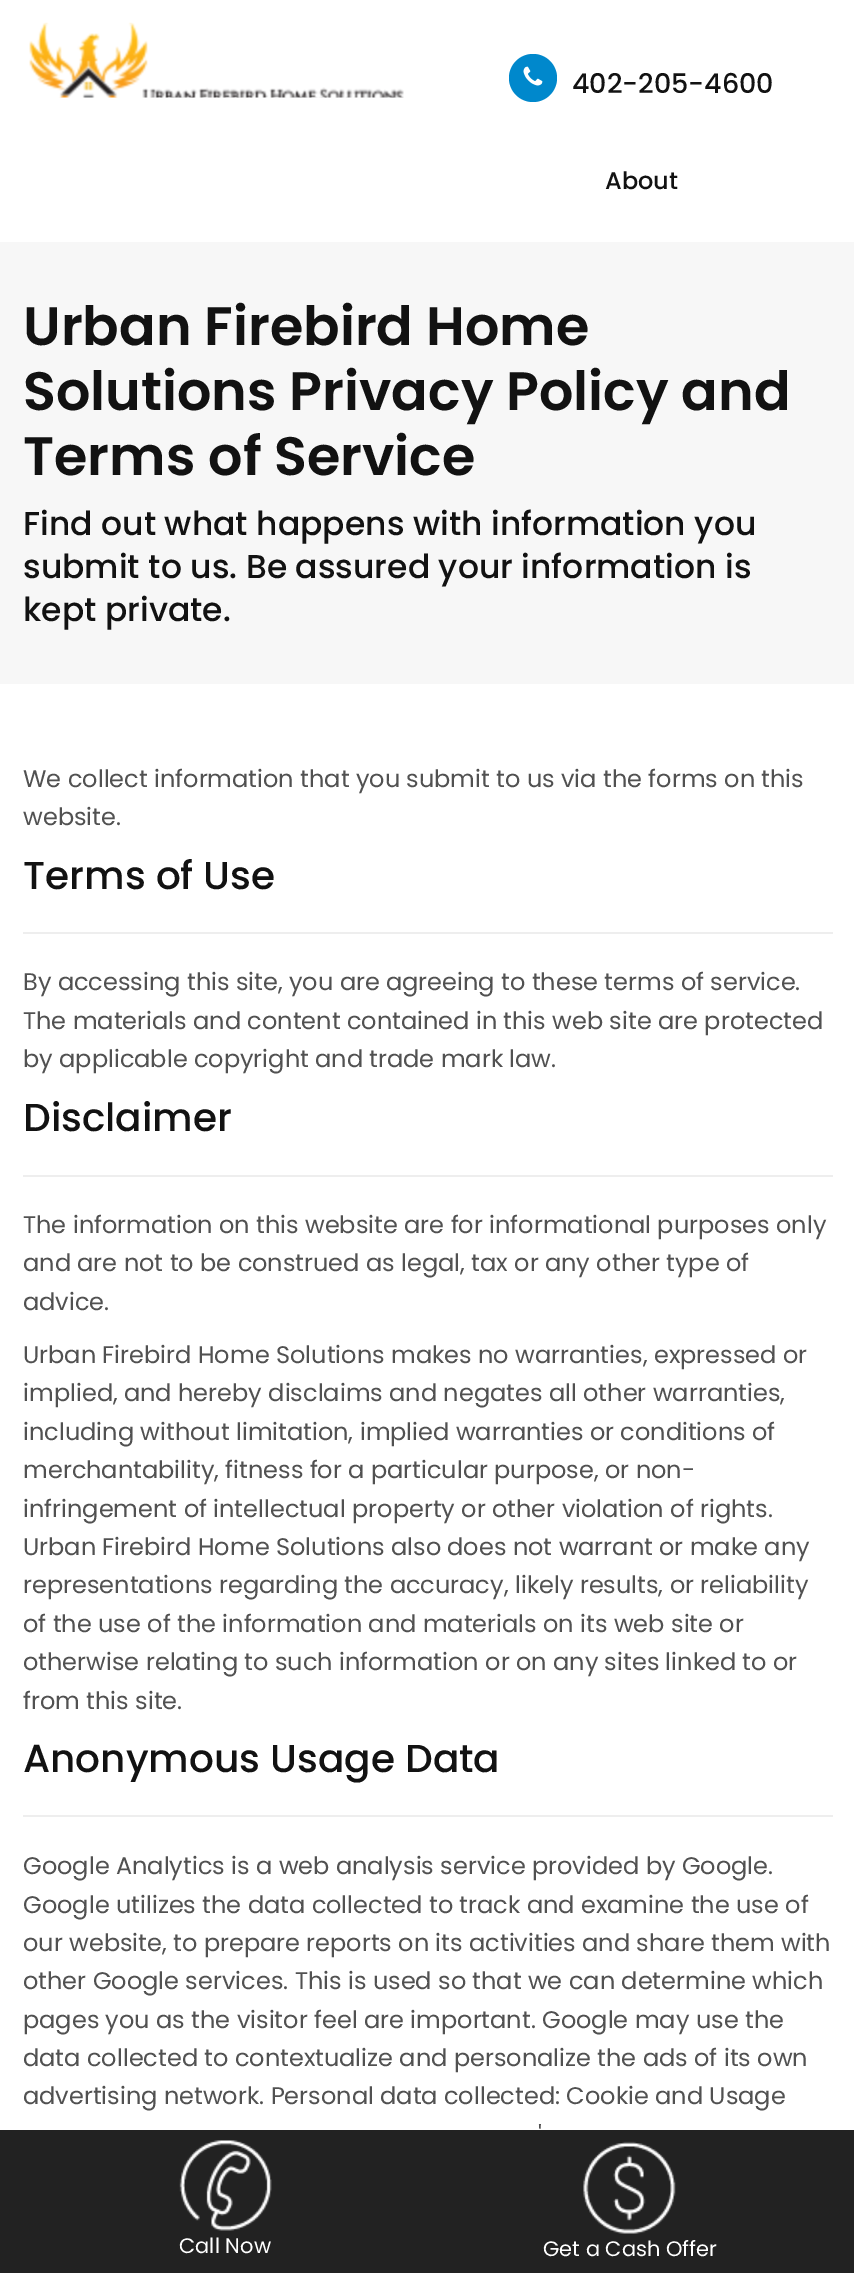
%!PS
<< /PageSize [854 2273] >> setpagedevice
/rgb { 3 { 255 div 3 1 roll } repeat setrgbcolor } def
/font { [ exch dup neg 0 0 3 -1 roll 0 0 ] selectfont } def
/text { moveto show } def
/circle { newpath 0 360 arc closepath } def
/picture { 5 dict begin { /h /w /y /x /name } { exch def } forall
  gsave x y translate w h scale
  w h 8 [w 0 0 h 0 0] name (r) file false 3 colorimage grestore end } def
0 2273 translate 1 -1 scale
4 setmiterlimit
255 255 255 rgb
0 0 854 2273 rectfill
(img_01.rgb) 29 22 375 76 picture
0 136 204 rgb
533 78 24 circle fill
(img_02.rgb) 523 66 20 20 picture
247 247 247 rgb
0 242 854 442 rectfill
238 238 238 rgb
23 932 810 2 rectfill
23 1175 810 2 rectfill
23 1815 810 2 rectfill
34 34 34 rgb
0 2130 854 143 rectfill
(img_03.rgb) 179 2140 93 91 picture
(img_04.rgb) 583 2141 93 93 picture
/Poppins-Medium 27 font
18 18 18 rgb
(402-205-4600) 572 93 text
/Poppins-Medium 24 font
(About) 605 189 text
/Poppins-SemiBold 54 font
(Urban Firebird Home) 23 345 text
(Solutions Privacy Policy and) 23 410 text
(Terms of Service) 23 475 text
/Poppins-Medium 33 font
(Find out what happens with information you) 23 535 text
(submit to us. Be assured your information is) 23 578 text
(kept private.) 23 621 text
/Poppins-Regular 24 font
81 81 81 rgb
(We collect information that you submit to us via the forms on this) 23 787 text
(website.) 23 825 text
/Poppins-Medium 39 font
18 18 18 rgb
(Terms of Use) 23 889 text
/Poppins-Regular 24 font
81 81 81 rgb
(By accessing this site, you are agreeing to these terms of service.) 23 990 text
(The materials and content contained in this web site are protected) 23 1029 text
(by applicable copyright and trade mark law.) 23 1067 text
/Poppins-Medium 39 font
18 18 18 rgb
(Disclaimer) 23 1131 text
/Poppins-Regular 24 font
81 81 81 rgb
(The information on this website are for informational purposes only) 23 1233 text
(and are not to be construed as legal, tax or any other type of) 23 1271 text
(advice.) 23 1310 text
(Urban Firebird Home Solutions makes no warranties, expressed or) 23 1363 text
(implied, and hereby disclaims and negates all other warranties,) 23 1401 text
(including without limitation, implied warranties or conditions of) 23 1440 text
(merchantability, fitness for a particular purpose, or non-) 23 1478 text
(infringement of intellectual property or other violation of rights.) 23 1517 text
(Urban Firebird Home Solutions also does not warrant or make any) 23 1555 text
(representations regarding the accuracy, likely results, or reliability) 23 1593 text
(of the use of the information and materials on its web site or) 23 1632 text
(otherwise relating to such information or on any sites linked to or) 23 1670 text
(from this site.) 23 1709 text
/Poppins-Medium 39 font
18 18 18 rgb
(Anonymous Usage Data) 23 1772 text
/Poppins-Regular 24 font
81 81 81 rgb
(Google Analytics is a web analysis service provided by Google.) 23 1874 text
(Google utilizes the data collected to track and examine the use of) 23 1913 text
(our website, to prepare reports on its activities and share them with) 23 1951 text
(other Google services. This is used so that we can determine which) 23 1989 text
(pages you as the visitor feel are important. Google may use the) 23 2028 text
(data collected to contextualize and personalize the ads of its own) 23 2066 text
(advertising network. Personal data collected: Cookie and Usage) 23 2104 text
(') 538 2143 text
/Poppins-Regular 21 font
255 255 255 rgb
(Call Now) 179 2253 text
(Get a Cash Offer) 543 2256 text
showpage
